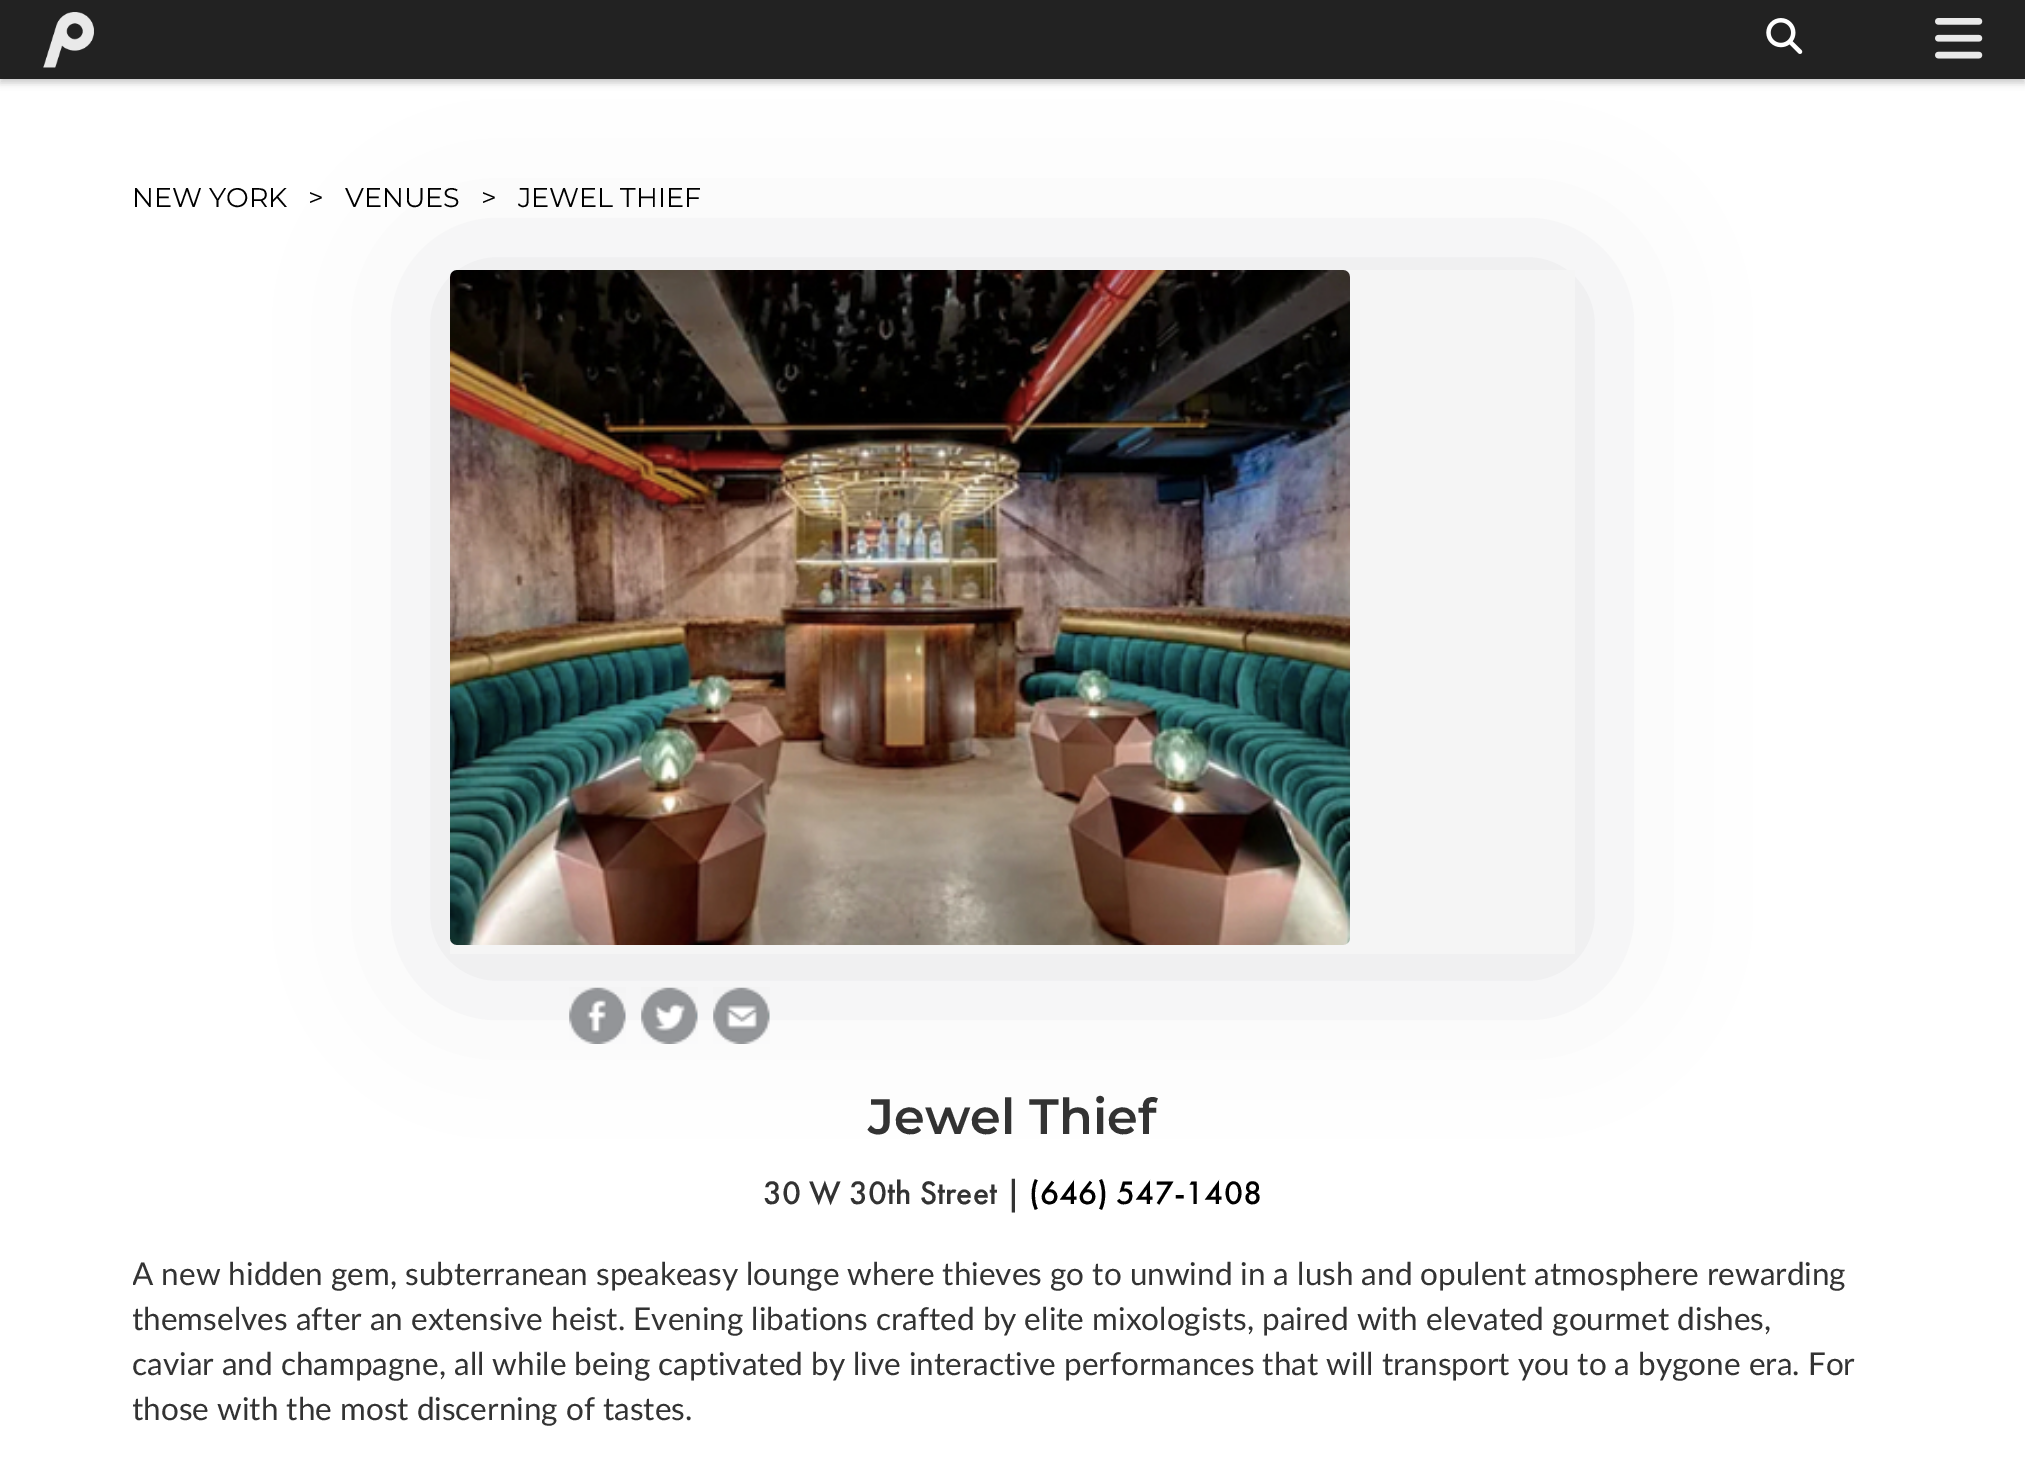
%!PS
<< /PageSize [2025 1464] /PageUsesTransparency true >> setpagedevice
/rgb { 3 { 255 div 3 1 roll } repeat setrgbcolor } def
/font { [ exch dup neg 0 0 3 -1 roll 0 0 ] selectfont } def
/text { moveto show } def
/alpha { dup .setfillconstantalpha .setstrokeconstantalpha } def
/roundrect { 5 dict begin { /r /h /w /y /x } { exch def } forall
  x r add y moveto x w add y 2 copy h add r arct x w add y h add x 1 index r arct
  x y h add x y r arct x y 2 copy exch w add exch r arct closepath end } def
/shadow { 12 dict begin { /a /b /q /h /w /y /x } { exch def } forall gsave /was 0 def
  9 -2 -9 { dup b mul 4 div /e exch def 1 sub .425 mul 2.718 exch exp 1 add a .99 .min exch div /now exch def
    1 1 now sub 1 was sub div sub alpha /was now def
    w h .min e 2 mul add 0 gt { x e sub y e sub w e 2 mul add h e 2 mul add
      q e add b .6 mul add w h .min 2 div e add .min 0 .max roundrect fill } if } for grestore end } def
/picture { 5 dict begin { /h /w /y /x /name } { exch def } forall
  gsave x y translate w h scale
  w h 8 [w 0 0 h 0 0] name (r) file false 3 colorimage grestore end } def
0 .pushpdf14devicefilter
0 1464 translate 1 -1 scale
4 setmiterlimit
255 255 255 rgb
0 0 2025 1464 rectfill
0 0 0 rgb
0 5 2025 78 0 3.5 0.2 shadow
100 100 111 rgb
450 277 1125 684 0 79 0.2 shadow
34 34 34 rgb
0 0 2025 79 rectfill
(img_01.rgb) 43 12 51 56 picture
(img_02.rgb) 1766 18 37 36 picture
(img_03.rgb) 1935 18 48 41 picture
245 245 245 rgb
450 270 1125 684 rectfill
(img_04.rgb) 450 270 900 675 picture
(img_05.rgb) 569 987 57 57 picture
(img_06.rgb) 641 987 57 57 picture
(img_07.rgb) 713 987 57 57 picture
/Montserrat-Regular 27 font
0 0 0 rgb
(NEW YORK) 132 207 text
(>) 308 207 text
(VENUES) 345 207 text
(>   JEWEL THIEF) 481 207 text
/Montserrat-SemiBold 49.5 font
51 51 51 rgb
(Jewel Thief) 868 1134 text
/FuturaPT-Medium 33.75 font
(30 W 30th Street |) 763 1204 text
0 0 0 rgb
(\(646\) 547-1408) 1029 1204 text
gsave
133 1249 1762 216 rectclip
/Lato-Regular 31.5 font
51 51 51 rgb
(A new hidden gem, subterranean speakeasy lounge where thieves go to unwind in a lush and opulent atmosphere rewarding) 132 1285 text
(themselves after an extensive heist. Evening libations crafted by elite mixologists, paired with elevated gourmet dishes,) 132 1330 text
grestore
/Lato-Regular 31.5 font
51 51 51 rgb
(caviar and champagne, all while being captivated by live interactive performances that will transport you to a bygone era. For) 132 1375 text
gsave
133 1249 1762 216 rectclip
(those with the most discerning of tastes.) 132 1420 text
grestore
.poppdf14devicefilter showpage
